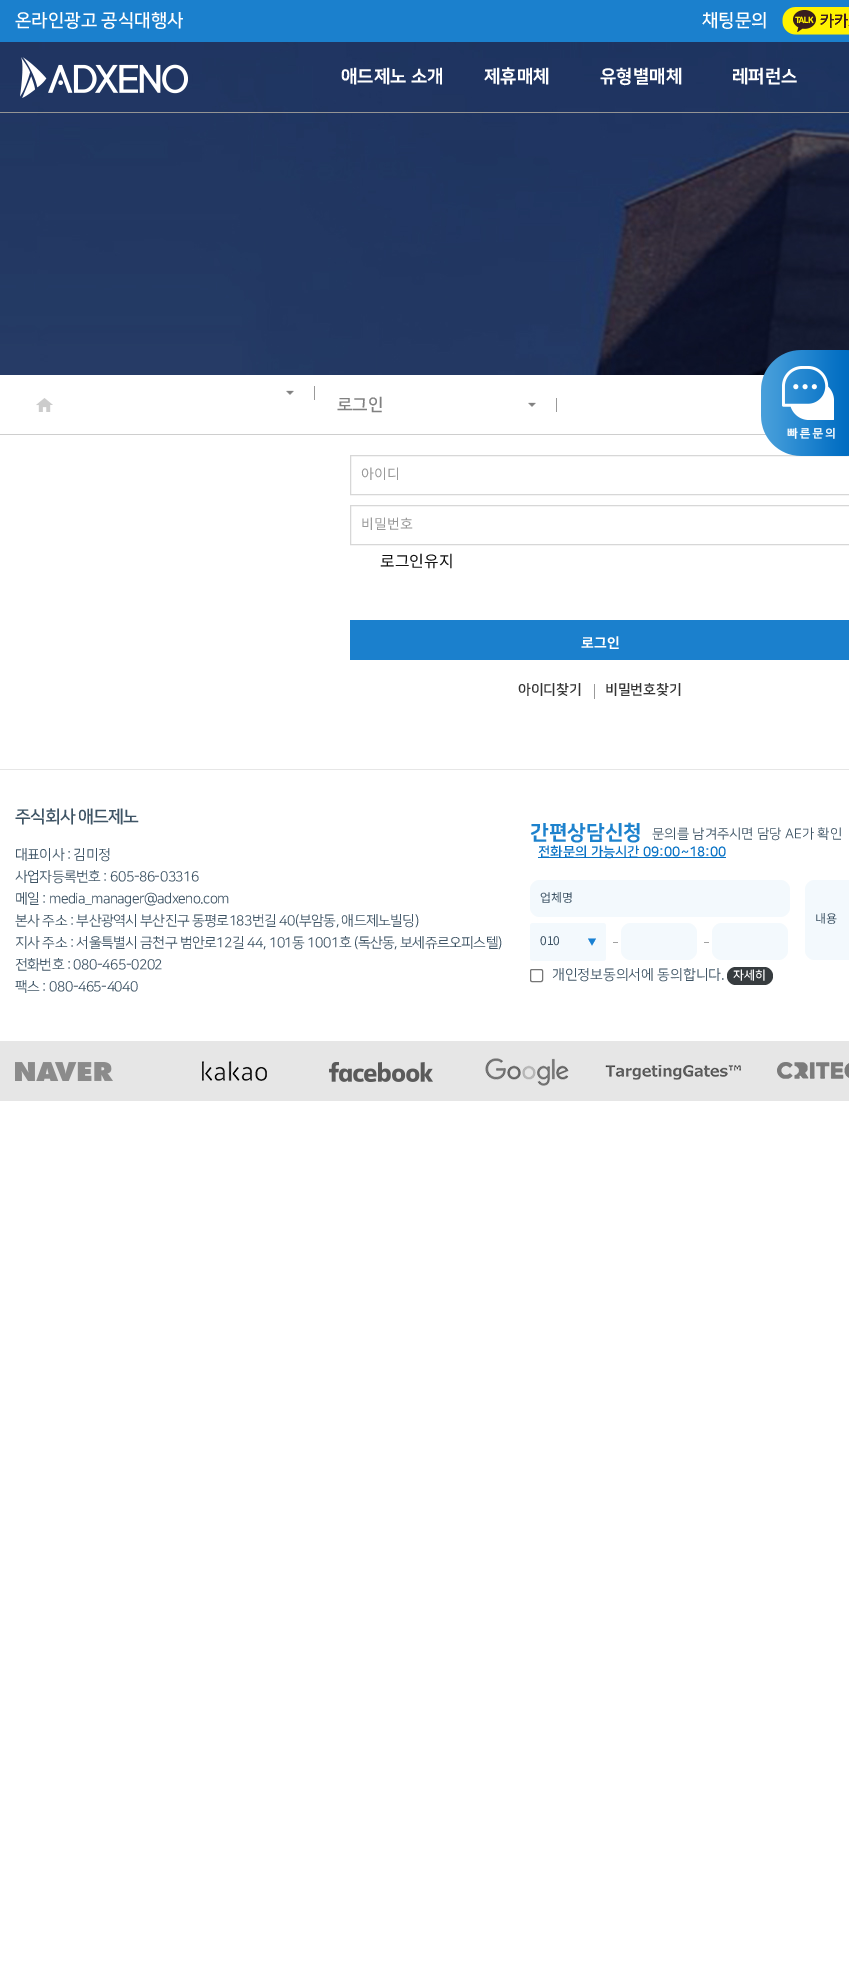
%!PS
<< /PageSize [849 1976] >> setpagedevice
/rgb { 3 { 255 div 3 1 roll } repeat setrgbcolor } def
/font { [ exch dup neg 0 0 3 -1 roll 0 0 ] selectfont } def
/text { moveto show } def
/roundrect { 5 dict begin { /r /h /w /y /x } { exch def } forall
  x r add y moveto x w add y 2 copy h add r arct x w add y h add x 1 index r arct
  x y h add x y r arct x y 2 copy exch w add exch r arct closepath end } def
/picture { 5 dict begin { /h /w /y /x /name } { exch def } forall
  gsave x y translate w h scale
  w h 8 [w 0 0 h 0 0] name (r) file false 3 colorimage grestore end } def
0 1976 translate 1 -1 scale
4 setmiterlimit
255 255 255 rgb
0 0 849 1976 rectfill
27 128 205 rgb
0 0 849 42 rectfill
(img_01.rgb) 782 7 67 28 picture
(img_02.rgb) 0 42 849 333 picture
148 148 148 rgb
0 112 849 1 rectfill
(img_03.rgb) 20 57 168 41 picture
206 206 206 rgb
0 434 766 1 rectfill
(img_04.rgb) 286 390 8 5 picture
153 153 153 rgb
314 386 1 14 rectfill
(img_05.rgb) 36 398 17 14 picture
(img_04.rgb) 528 402 8 5 picture
556 398 1 14 rectfill
215 215 215 rgb
350.5 455.5 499 39 rectstroke
(img_06.rgb) 761 350 88 106 picture
350.5 505.5 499 39 rectstroke
27 128 205 rgb
350 620 499 40 rectfill
153 153 153 rgb
594 684 1 15 rectfill
230 230 230 rgb
0 769 849 1 rectfill
8 114 197 rgb
538 857 188 1 rectfill
243 249 253 rgb
530 880 260 37 10 roundrect fill
530 923 76 38 3 roundrect fill
25 129 211 rgb
588 938.5 moveto 8 0 rlineto -4 7 rlineto closepath fill
161 161 161 rgb
613 942 5 1 rectfill
243 249 253 rgb
621 923 76 37 10 roundrect fill
161 161 161 rgb
704 942 5 1 rectfill
243 249 253 rgb
712 923 76 37 10 roundrect fill
805 880 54 80 10 roundrect fill
118 118 118 rgb
530.5 969.5 12 12 1.5 roundrect stroke
55 60 63 rgb
727 967 46 18 9 roundrect fill
230 230 230 rgb
0 1041 849 60 rectfill
(img_07.rgb) 15 1062 98 19 picture
(img_08.rgb) 202 1061 65 20 picture
(img_09.rgb) 329 1062 104 20 picture
(img_10.rgb) 485 1058 84 28 picture
(img_11.rgb) 605 1065 136 15 picture
(img_12.rgb) 777 1062 72 17 picture
/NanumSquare-Bold 18 font
255 255 255 rgb
(온라인광고 공식대행사) 15 26 text
(채팅문의) 702 26 text
/NanumSquare-ExtraBold 18 font
(애드제노 소개) 341 82 text
(제휴매체) 484 82 text
(유형별매체) 600 82 text
(레퍼런스) 732 82 text
/NanumSquare-Bold 17 font
128 128 128 rgb
(로그인) 337 410 text
/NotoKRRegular-Regular 14 font
153 153 153 rgb
(아이디) 361 479 text
(비밀번호) 361 529 text
/NotoKRRegular-Regular 16 font
17 17 17 rgb
(로그인유지) 380 567 text
/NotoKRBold-Bold 14 font
255 255 255 rgb
(로그인) 581 648 text
/NanumSquare-Bold 14 font
51 51 51 rgb
(아이디찾기) 518 694 text
(비밀번호찾기) 605 694 text
/NanumSquare-Bold 17.25 font
62 84 101 rgb
15 822 moveto -0.75 0 (주식회사 애드제노) ashow
/NanumSquare-Regular 14 font
15 859 moveto -0.55 0 (대표이사 : 김미정) ashow
15 881 moveto -0.55 0 (사업자등록번호 : 605-86-03316) ashow
15 903 moveto -0.55 0 (메일 : media_manager@adxeno.com) ashow
15 925 moveto -0.55 0 (본사 주소 : 부산광역시 부산진구 동평로183번길 40\(부암동, 애드제노빌딩\)) ashow
15 947 moveto -0.55 0 (지사 주소 : 서울특별시 금천구 범안로12길 44, 101동 1001호 \(독산동, 보세쥬르오피스텔\)) ashow
15 969 moveto -0.55 0 (전화번호 : 080-465-0202) ashow
15 991 moveto -0.55 0 (팩스 : 080-465-4040) ashow
/NanumSquare-ExtraBold 20.5 font
29 130 205 rgb
(간편상담신청) 530 839 text
/NanumSquare-Regular 13.5 font
62 84 101 rgb
(문의를 남겨주시면 담당 AE가 확인) 652 838 text
/NanumSquare-Bold 13.5 font
8 114 197 rgb
(전화문의 가능시간 09:00~18:00) 538 856 text
/NotoKRRegular-Regular 12 font
62 84 101 rgb
(업체명) 540 902 text
(010) 540 945 text
(내용) 815 923 text
/NanumSquare-Regular 14 font
(개인정보동의서에 동의합니다.) 552 979 text
/NanumSquare-Bold 12 font
255 255 255 rgb
(자세히) 733 979 text
showpage
